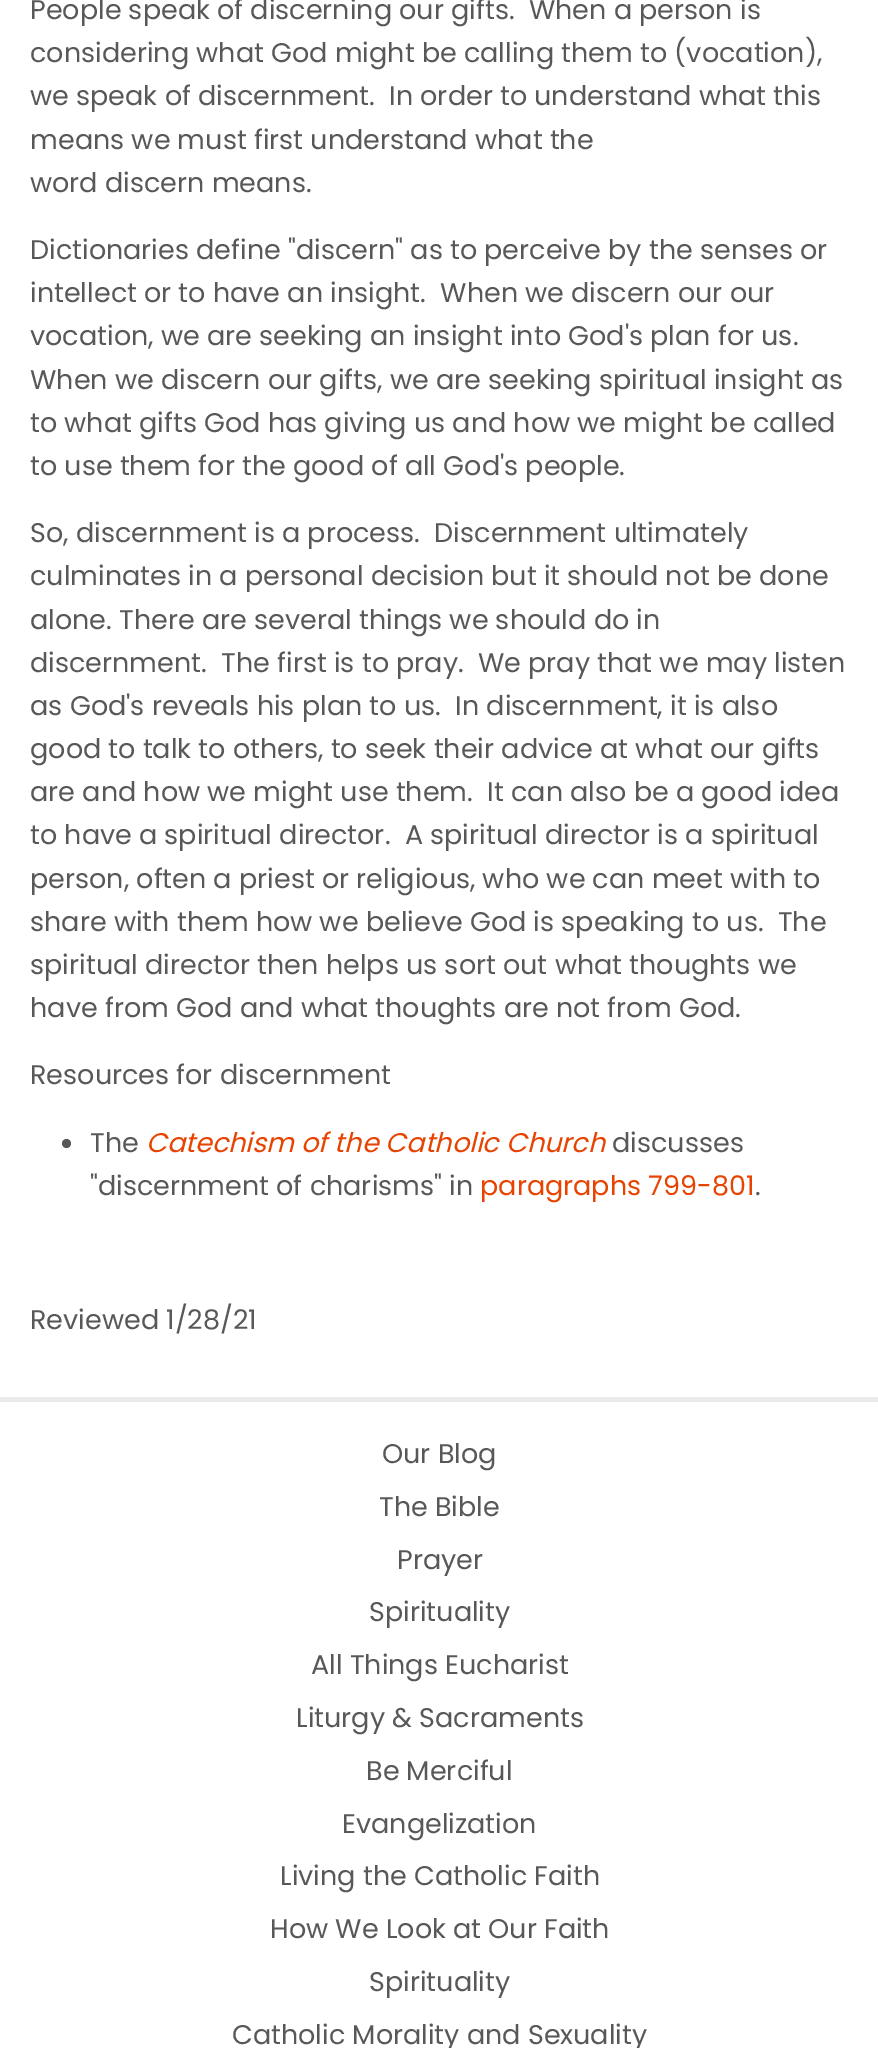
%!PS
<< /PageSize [878 2048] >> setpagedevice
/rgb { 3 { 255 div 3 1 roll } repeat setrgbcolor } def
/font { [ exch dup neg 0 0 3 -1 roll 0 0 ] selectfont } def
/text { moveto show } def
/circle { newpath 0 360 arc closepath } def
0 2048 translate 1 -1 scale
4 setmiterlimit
255 255 255 rgb
0 0 878 2048 rectfill
88 88 88 rgb
66.5 1143.5 4.5 circle fill
235 235 235 rgb
0 1397 878 5 rectfill
/Poppins-Regular 27 font
88 88 88 rgb
(People speak of discerning our gifts.  When a person is) 30 19 text
(considering what God might be calling them to \(vocation\),) 30 62 text
(we speak of discernment.  In order to understand what this) 30 105 text
(means we must first understand what the) 30 149 text
(word discern means.) 30 192 text
(Dictionaries define "discern" as to perceive by the senses or) 30 259 text
(intellect or to have an insight.  When we discern our our) 30 302 text
(vocation, we are seeking an insight into God's plan for us.) 30 345 text
(When we discern our gifts, we are seeking spiritual insight as) 30 389 text
(to what gifts God has giving us and how we might be called) 30 432 text
(to use them for the good of all God's people.) 30 475 text
(So, discernment is a process.  Discernment ultimately) 30 542 text
(culminates in a personal decision but it should not be done) 30 585 text
(alone. There are several things we should do in) 30 629 text
(discernment.  The first is to pray.  We pray that we may listen) 30 672 text
(as God's reveals his plan to us.  In discernment, it is also) 30 715 text
(good to talk to others, to seek their advice at what our gifts) 30 758 text
(are and how we might use them.  It can also be a good idea) 30 801 text
(to have a spiritual director.  A spiritual director is a spiritual) 30 844 text
(person, often a priest or religious, who we can meet with to) 30 888 text
(share with them how we believe God is speaking to us.  The) 30 931 text
(spiritual director then helps us sort out what thoughts we) 30 974 text
(have from God and what thoughts are not from God.) 30 1017 text
(Resources for discernment) 30 1084 text
(The) 90 1152 text
/Poppins-Italic 27 font
231 68 2 rgb
(Catechism of the Catholic Church) 146 1152 text
/Poppins-Regular 27 font
88 88 88 rgb
(discusses) 612 1152 text
("discernment of charisms" in) 90 1195 text
231 68 2 rgb
(paragraphs 799-801) 480 1195 text
88 88 88 rgb
(.) 755 1195 text
(Reviewed 1/28/21) 30 1329 text
(Our Blog) 382 1463 text
(The Bible) 379 1516 text
(Prayer) 397 1569 text
(Spirituality) 369 1621 text
(All Things Eucharist) 311 1674 text
(Liturgy & Sacraments) 296 1727 text
(Be Merciful) 366 1780 text
(Evangelization) 342 1833 text
(Living the Catholic Faith) 280 1885 text
(How We Look at Our Faith) 270 1938 text
(Spirituality) 369 1991 text
(Catholic Morality and Sexuality) 232 2044 text
showpage
